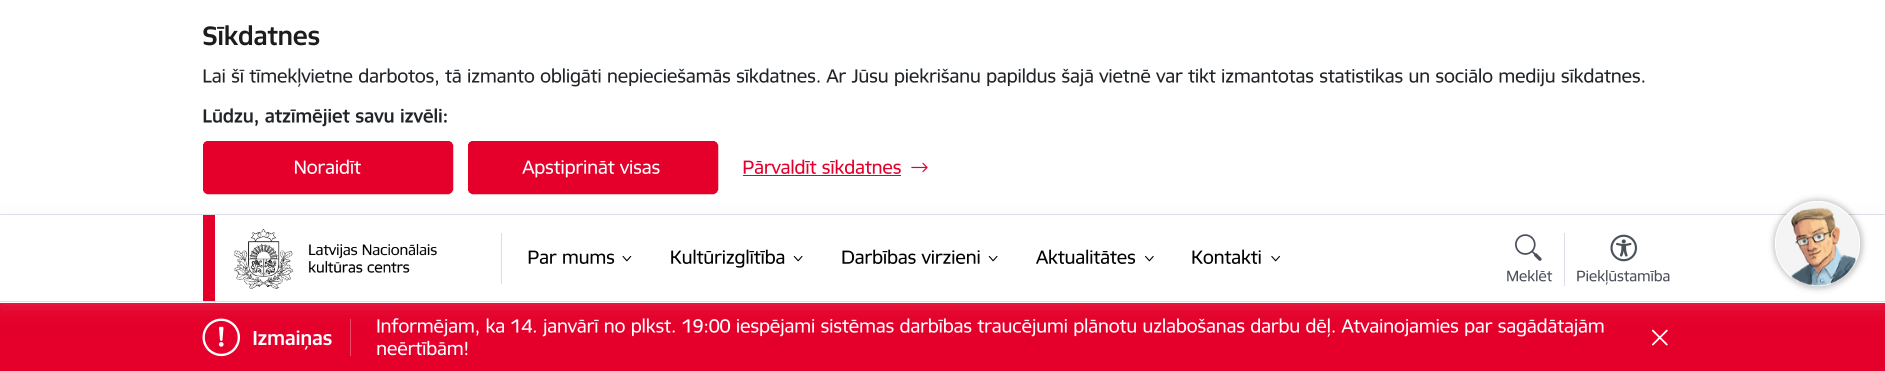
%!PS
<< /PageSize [1885 371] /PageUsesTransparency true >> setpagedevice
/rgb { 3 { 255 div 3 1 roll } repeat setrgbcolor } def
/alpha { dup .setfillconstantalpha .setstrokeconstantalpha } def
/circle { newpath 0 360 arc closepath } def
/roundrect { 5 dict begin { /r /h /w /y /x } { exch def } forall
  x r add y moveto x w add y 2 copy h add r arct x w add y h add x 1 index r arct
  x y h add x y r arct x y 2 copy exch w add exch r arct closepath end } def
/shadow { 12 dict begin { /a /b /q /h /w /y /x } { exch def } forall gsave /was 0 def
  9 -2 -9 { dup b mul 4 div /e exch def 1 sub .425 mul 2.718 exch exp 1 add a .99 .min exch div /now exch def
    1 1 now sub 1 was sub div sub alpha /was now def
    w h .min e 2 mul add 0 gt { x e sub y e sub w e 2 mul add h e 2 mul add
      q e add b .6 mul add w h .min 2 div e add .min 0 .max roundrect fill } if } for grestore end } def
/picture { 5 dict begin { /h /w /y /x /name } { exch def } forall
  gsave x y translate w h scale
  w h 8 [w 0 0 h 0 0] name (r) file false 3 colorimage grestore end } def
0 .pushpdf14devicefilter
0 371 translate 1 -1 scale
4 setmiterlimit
255 255 255 rgb
0 0 1885 371 rectfill
219 222 228 rgb
0 214 1885 1 rectfill
(img_01.rgb) 203 25 117 21 picture
(img_02.rgb) 203 68 1442 19 picture
(img_03.rgb) 203 108 244 19 picture
228 0 43 rgb
203.5 141.5 249 52 4.5 roundrect gsave fill grestore
stroke
(img_04.rgb) 295 159 66 15 picture
468.5 141.5 249 52 4.5 roundrect gsave fill grestore
stroke
(img_05.rgb) 522 160 138 18 picture
(img_06.rgb) 743 159 158 15 picture
(img_07.rgb) 911 162 17 11 picture
743 175 158 1 rectfill
0 303 1885 68 rectfill
234 74 104 rgb
350 319 1 37 rectfill
(img_23.rgb) 202 318 38 39 picture
(img_24.rgb) 253 330 79 20 picture
(img_25.rgb) 377 318 1227 19 picture
(img_27.rgb) 1652 329 16 17 picture
gsave
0 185 moveto 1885 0 rlineto 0 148 rlineto -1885 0 rlineto closepath 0 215 moveto 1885 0 rlineto 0 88 rlineto -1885 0 rlineto closepath eoclip newpath
219 222 228 rgb
0 215 1885 88 0 9.5 0.2 shadow
grestore
219 222 228 rgb
0 301 1885 1 rectfill
255 255 255 rgb
184 301 1519 1 rectfill
219 222 228 rgb
184 301 1519 1 rectfill
228 0 43 rgb
203 215 12 86 rectfill
(img_08.rgb) 233 228 204 61 picture
219 222 228 rgb
501 233 1 51 rectfill
(img_09.rgb) 528 250 87 14 picture
(img_10.rgb) 622 255 10 7 picture
(img_11.rgb) 671 249 114 19 picture
(img_12.rgb) 793 255 10 7 picture
(img_13.rgb) 842 249 138 15 picture
(img_12.rgb) 988 255 10 7 picture
(img_14.rgb) 1036 249 100 15 picture
(img_15.rgb) 1145 255 9 7 picture
(img_16.rgb) 1192 249 69 15 picture
(img_17.rgb) 1271 255 9 7 picture
(img_18.rgb) 1515 234 27 27 picture
(img_19.rgb) 1507 270 46 12 picture
1564 233 1 53 rectfill
(img_20.rgb) 1610 234 28 28 picture
(img_21.rgb) 1577 270 93 15 picture
0 0 0 rgb
1773 199 90 90 45 2.5 0.2 shadow
255 255 255 rgb
1817.5 243.5 42.5 circle fill
(img_22.rgb) 1776 202 83 85 picture
(img_26.rgb) 377 340 91 16 picture
.poppdf14devicefilter showpage
